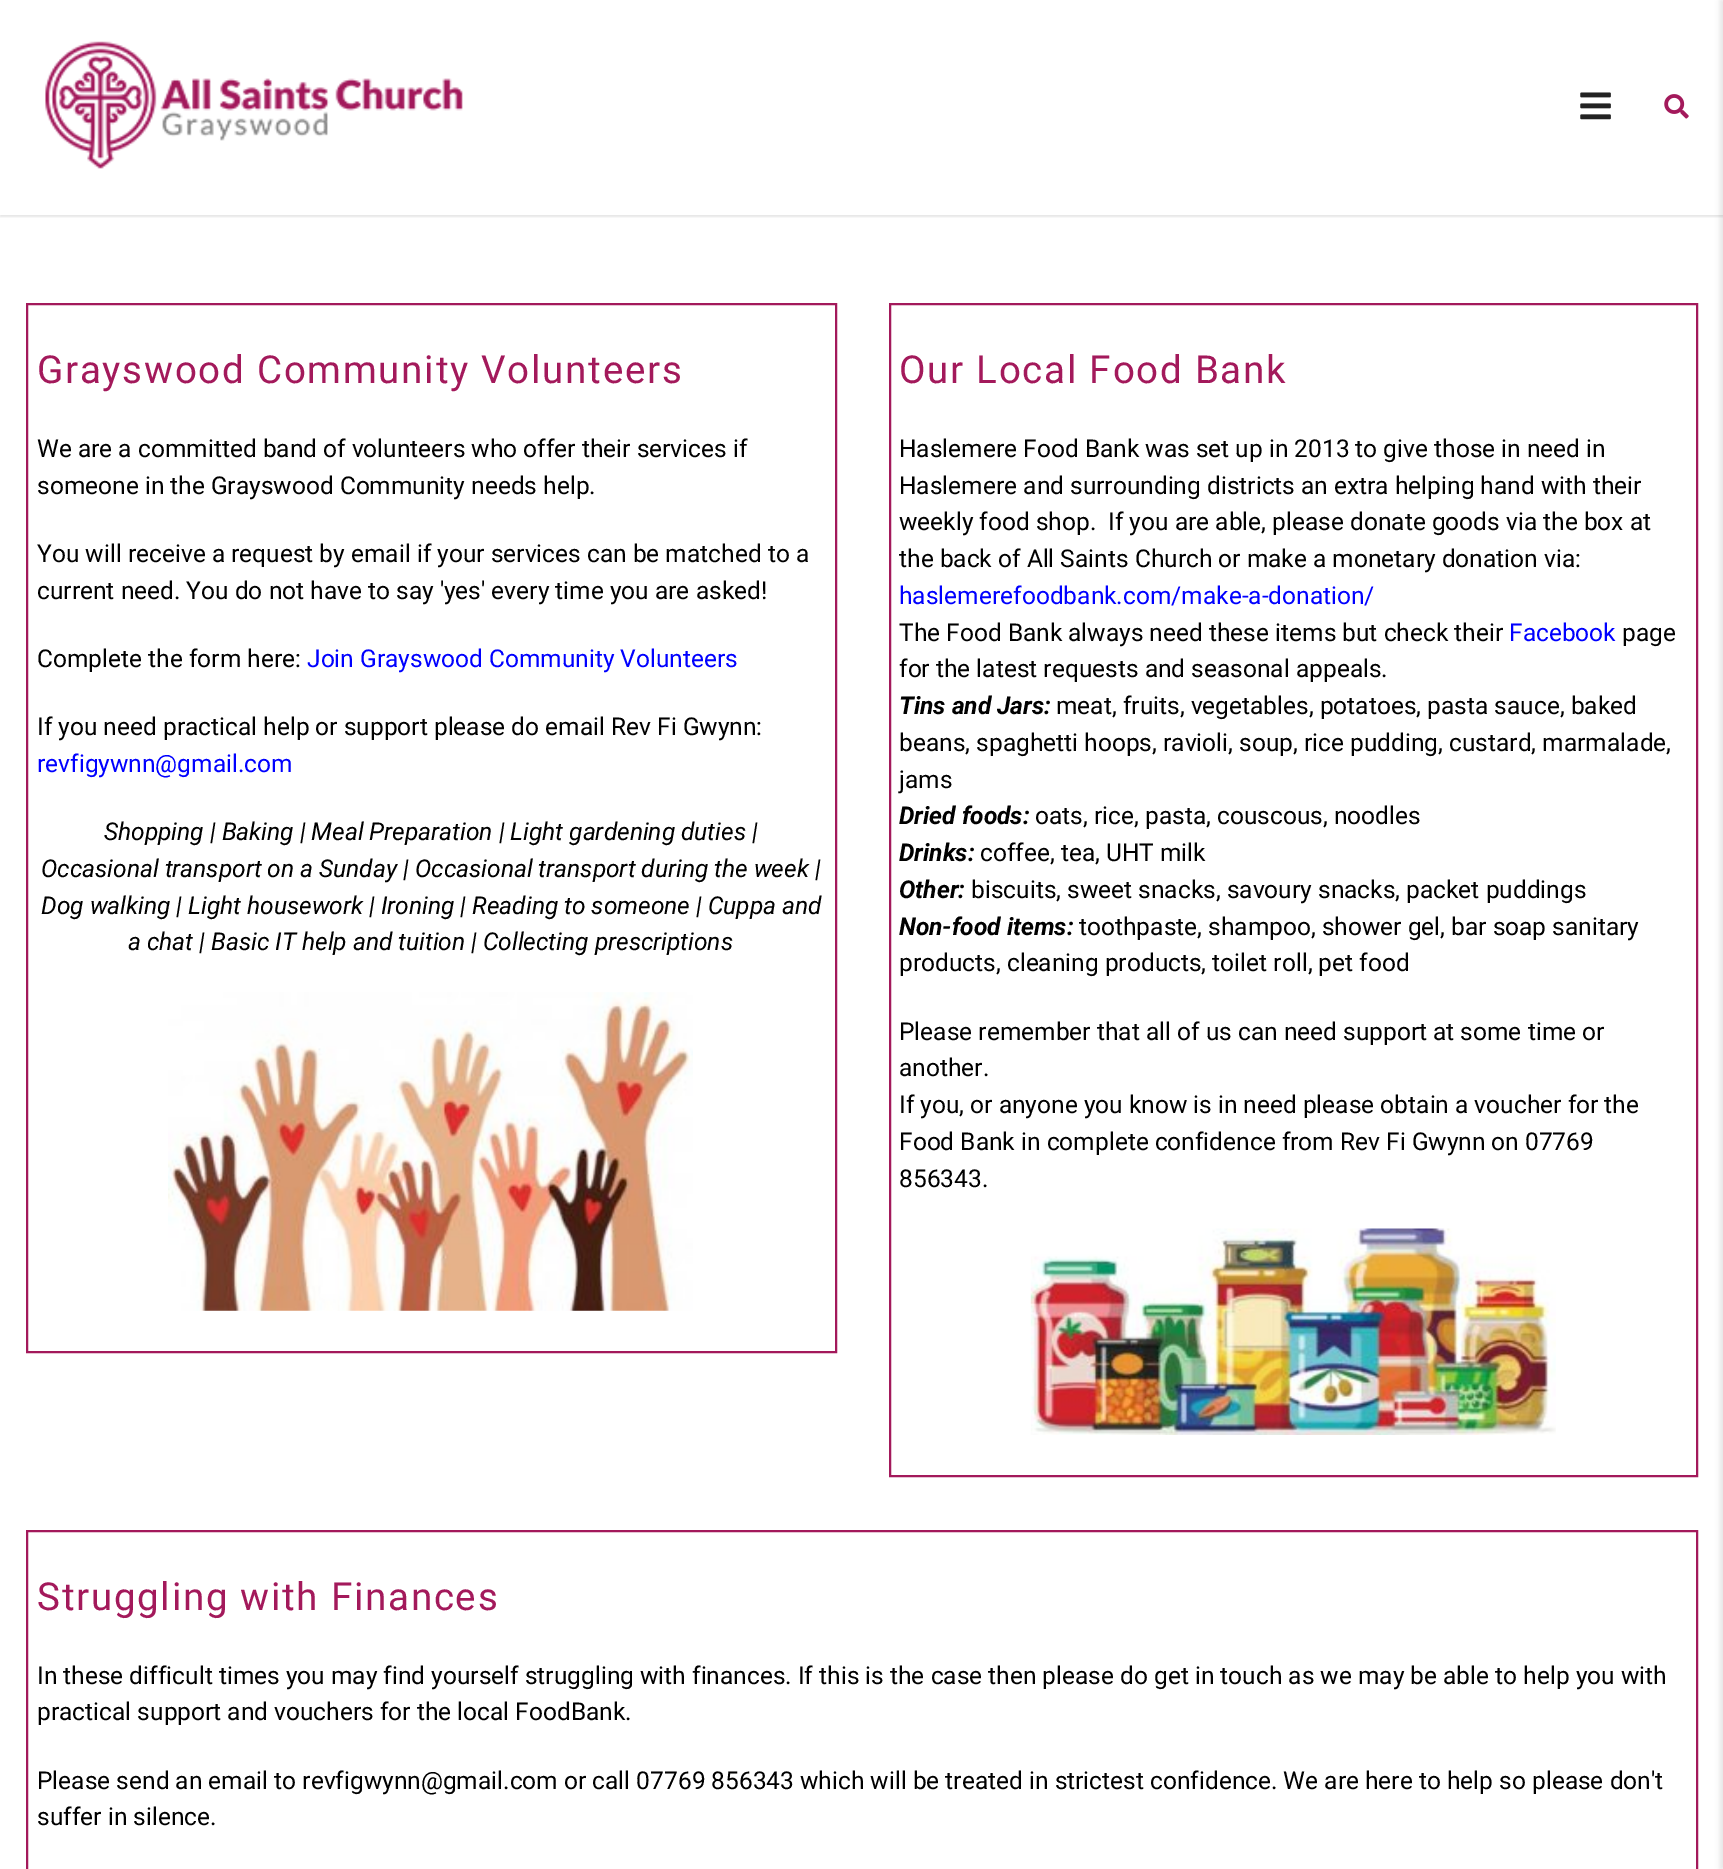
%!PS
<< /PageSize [1723 1869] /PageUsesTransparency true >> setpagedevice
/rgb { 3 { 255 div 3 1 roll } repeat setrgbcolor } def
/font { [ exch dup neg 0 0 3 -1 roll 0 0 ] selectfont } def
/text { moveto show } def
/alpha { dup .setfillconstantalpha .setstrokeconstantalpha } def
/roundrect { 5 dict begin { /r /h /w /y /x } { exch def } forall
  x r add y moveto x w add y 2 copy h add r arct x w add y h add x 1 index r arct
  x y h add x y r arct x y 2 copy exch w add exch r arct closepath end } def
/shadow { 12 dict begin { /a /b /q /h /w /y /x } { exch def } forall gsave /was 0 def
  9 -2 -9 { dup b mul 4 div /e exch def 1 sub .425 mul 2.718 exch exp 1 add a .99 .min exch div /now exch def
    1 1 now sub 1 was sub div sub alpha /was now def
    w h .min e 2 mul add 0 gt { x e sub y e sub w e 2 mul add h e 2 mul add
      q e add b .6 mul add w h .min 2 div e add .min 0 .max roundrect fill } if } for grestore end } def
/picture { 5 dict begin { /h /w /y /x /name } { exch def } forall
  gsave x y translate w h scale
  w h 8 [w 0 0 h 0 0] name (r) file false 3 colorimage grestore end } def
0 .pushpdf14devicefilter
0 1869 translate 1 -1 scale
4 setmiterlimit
255 255 255 rgb
0 0 1723 1869 rectfill
gsave
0 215 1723 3 rectclip
0 0 0 rgb
0 2 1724 215 0 1 0.1 shadow
grestore
(img_01.rgb) 45 41 418 128 picture
(img_02.rgb) 1580 92 31 28 picture
(img_03.rgb) 1664 94 25 25 picture
163 25 91 rgb
2 setlinewidth
27 304 809 1048 rectstroke
(img_04.rgb) 168 992 525 319 picture
890 304 807 1172 rectstroke
(img_05.rgb) 1030 1228 526 207 picture
27 1531 1670 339 rectstroke
0 0 0 rgb
1720 0 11 1869 0 2.5 0.1 shadow
/Roboto-Regular 38.5 font
163 25 91 rgb
37 383 moveto 1.75 0 (Grayswood Community Volunteers) ashow
/Roboto-Regular 24.5 font
0 0 0 rgb
(We are a committed band of volunteers who offer their services if) 37 457 text
(someone in the Grayswood Community needs help.) 37 494 text
(You will receive a request by email if your services can be matched to a) 37 562 text
(current need. You do not have to say 'yes' every time you are asked!) 37 599 text
(Complete the form here:) 37 667 text
0 0 255 rgb
(Join Grayswood Community Volunteers) 307 667 text
0 0 0 rgb
(If you need practical help or support please do email Rev Fi Gwynn:) 37 735 text
0 0 255 rgb
(revfigywnn@gmail.com) 37 772 text
/Roboto-Italic 24.5 font
0 0 0 rgb
(Shopping | Baking | Meal Preparation | Light gardening duties |) 104 840 text
(Occasional transport on a Sunday | Occasional transport during the week |) 41 877 text
(Dog walking | Light housework | Ironing | Reading to someone | Cuppa and) 41 914 text
(a chat | Basic IT help and tuition | Collecting prescriptions) 128 950 text
/Roboto-Regular 38.5 font
163 25 91 rgb
899 383 moveto 1.75 0 (Our Local Food Bank) ashow
/Roboto-Regular 24.5 font
0 0 0 rgb
(Haslemere Food Bank was set up in 2013 to give those in need in) 899 457 text
(Haslemere and surrounding districts an extra helping hand with their) 899 494 text
(weekly food shop.  If you are able, please donate goods via the box at) 899 530 text
(the back of All Saints Church or make a monetary donation via:) 899 567 text
0 0 255 rgb
(haslemerefoodbank.com/make-a-donation/) 899 604 text
0 0 0 rgb
(The Food Bank always need these items but check their) 899 641 text
0 0 255 rgb
(Facebook) 1509 641 text
0 0 0 rgb
(page) 1622 641 text
(for the latest requests and seasonal appeals.) 899 677 text
/Roboto-BoldItalic 24.5 font
(Tins and Jars:) 899 714 text
/Roboto-Regular 24.5 font
(meat, fruits, vegetables, potatoes, pasta sauce, baked) 1056 714 text
(beans, spaghetti hoops, ravioli, soup, rice pudding, custard, marmalade,) 899 751 text
(jams) 899 788 text
/Roboto-BoldItalic 24.5 font
(Dried foods:) 899 824 text
/Roboto-Regular 24.5 font
(oats, rice, pasta, couscous, noodles) 1035 824 text
/Roboto-BoldItalic 24.5 font
(Drinks:) 899 861 text
/Roboto-Regular 24.5 font
(coffee, tea, UHT milk) 980 861 text
/Roboto-BoldItalic 24.5 font
(Other:) 899 898 text
/Roboto-Regular 24.5 font
(biscuits, sweet snacks, savoury snacks, packet puddings) 971 898 text
/Roboto-BoldItalic 24.5 font
(Non-food items:) 899 935 text
/Roboto-Regular 24.5 font
(toothpaste, shampoo, shower gel, bar soap sanitary) 1079 935 text
(products, cleaning products, toilet roll, pet food) 899 971 text
(Please remember that all of us can need support at some time or) 899 1040 text
(another.) 899 1076 text
(If you, or anyone you know is in need please obtain a voucher for the) 899 1113 text
(Food Bank in complete confidence from Rev Fi Gwynn on 07769) 899 1150 text
(856343.) 899 1187 text
/Roboto-Regular 38.5 font
163 25 91 rgb
37 1610 moveto 1.75 0 (Struggling with Finances) ashow
/Roboto-Regular 24.5 font
0 0 0 rgb
(In these difficult times you may find yourself struggling with finances. If this is the case then please do get in touch as we may be able to help you with) 37 1684 text
(practical support and vouchers for the local FoodBank.) 37 1720 text
(Please send an email to revfigwynn@gmail.com or call 07769 856343 which will be treated in strictest confidence. We are here to help so please don't) 37 1789 text
(suffer in silence.) 37 1825 text
.poppdf14devicefilter showpage
